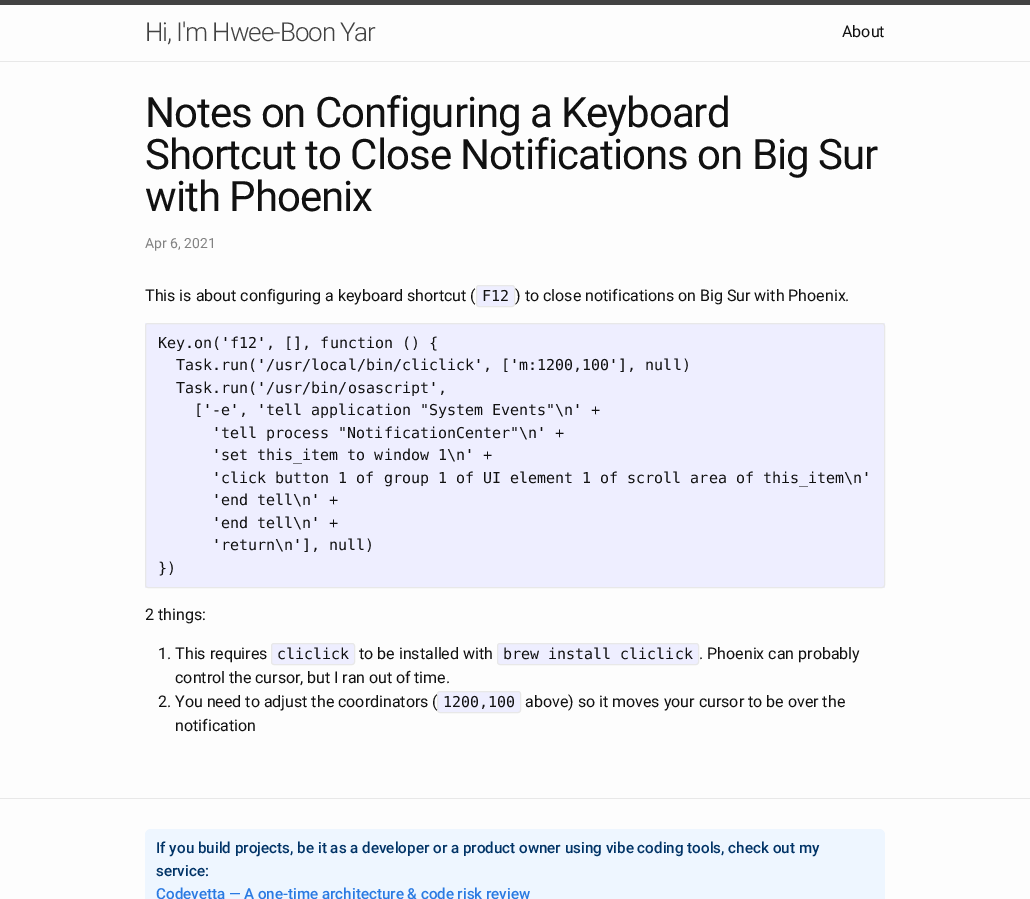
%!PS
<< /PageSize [1030 899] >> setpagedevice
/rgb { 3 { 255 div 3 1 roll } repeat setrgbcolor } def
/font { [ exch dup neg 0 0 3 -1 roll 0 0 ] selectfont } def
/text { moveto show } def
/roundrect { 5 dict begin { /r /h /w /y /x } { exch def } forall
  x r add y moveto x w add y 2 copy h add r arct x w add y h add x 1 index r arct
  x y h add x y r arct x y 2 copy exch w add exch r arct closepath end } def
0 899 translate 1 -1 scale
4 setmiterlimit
253 253 253 rgb
0 0 1030 899 rectfill
66 66 66 rgb
0 0 1030 5 rectfill
232 232 232 rgb
0 61 1030 1 rectfill
238 238 255 rgb
476.5 285.5 38 21 2.5 roundrect gsave fill grestore
232 232 232 rgb
stroke
238 238 255 rgb
145 323 740 265 rectfill
232 232 232 rgb
145.5 323.5 739 264 2.5 roundrect stroke
238 238 255 rgb
271.5 643.5 83 21 2.5 roundrect gsave fill grestore
232 232 232 rgb
stroke
238 238 255 rgb
497.5 643.5 201 21 2.5 roundrect gsave fill grestore
232 232 232 rgb
stroke
238 238 255 rgb
437.5 691.5 83 21 2.5 roundrect gsave fill grestore
232 232 232 rgb
stroke
0 798 1030 1 rectfill
238 246 255 rgb
145 829 740 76 6 roundrect fill
/Roboto-Light 26 font
66 66 66 rgb
145 41 moveto -0.5 0 32 -1 0 (Hi, I'm Hwee-Boon Yar) awidthshow
/Roboto-Regular 16 font
17 17 17 rgb
(About) 842 37 text
/Roboto-Regular 42 font
145 127 moveto -0.5 0 32 -1 0 (Notes on Configuring a Keyboard) awidthshow
145 169 moveto -1 0 (Shortcut to Close Notifications on Big Sur) ashow
145 211 moveto -1 0 (with Phoenix) ashow
/Roboto-Regular 14 font
130 130 130 rgb
(Apr 6, 2021) 145 248 text
/Roboto-Regular 16 font
17 17 17 rgb
(This is about configuring a keyboard shortcut \() 145 301 text
/DejaVuSansMono-Regular 15 font
(F12) 482 301 text
/Roboto-Regular 16 font
(\) to close notifications on Big Sur with Phoenix.) 515 301 text
/DejaVuSansMono-Regular 15 font
(Key.on\('f12', [], function \(\) {) 158 348 text
(Task.run\('/usr/local/bin/cliclick', ['m:1200,100'], null\)) 176 370 text
(Task.run\('/usr/bin/osascript',) 176 393 text
(['-e', 'tell application "System Events"\\n' +) 194 415 text
('tell process "NotificationCenter"\\n' +) 212 438 text
('set this_item to window 1\\n' +) 212 460 text
('click button 1 of group 1 of UI element 1 of scroll area of this_item\\n') 212 483 text
('end tell\\n' +) 212 505 text
('end tell\\n' +) 212 528 text
('return\\n'], null\)) 212 550 text
(}\)) 158 573 text
/Roboto-Regular 16 font
(2 things:) 145 620 text
(1. This requires) 158 659 text
/DejaVuSansMono-Regular 15 font
(cliclick) 277 659 text
/Roboto-Regular 16 font
(to be installed with) 359 659 text
/DejaVuSansMono-Regular 15 font
(brew install cliclick) 503 659 text
/Roboto-Regular 16 font
(. Phoenix can probably) 699 659 text
175 683 moveto -0.25 0 32 (control the cursor, but I ran out of time.) widthshow
(2.) 158 707 text
(You need to adjust the coordinators \() 175 707 text
/DejaVuSansMono-Regular 15 font
(1200,100) 443 707 text
/Roboto-Regular 16 font
(above\) so it moves your cursor to be over the) 525 707 text
(notification) 175 731 text
/Roboto-Medium 15.2 font
0 51 102 rgb
(If you build projects, be it as a developer or a product owner using vibe coding tools, check out my) 156 853 text
(service:) 156 876 text
42 122 226 rgb
156 899 moveto -0.25 0 32 (Codevetta — A one-time architecture & code risk review) widthshow
showpage
